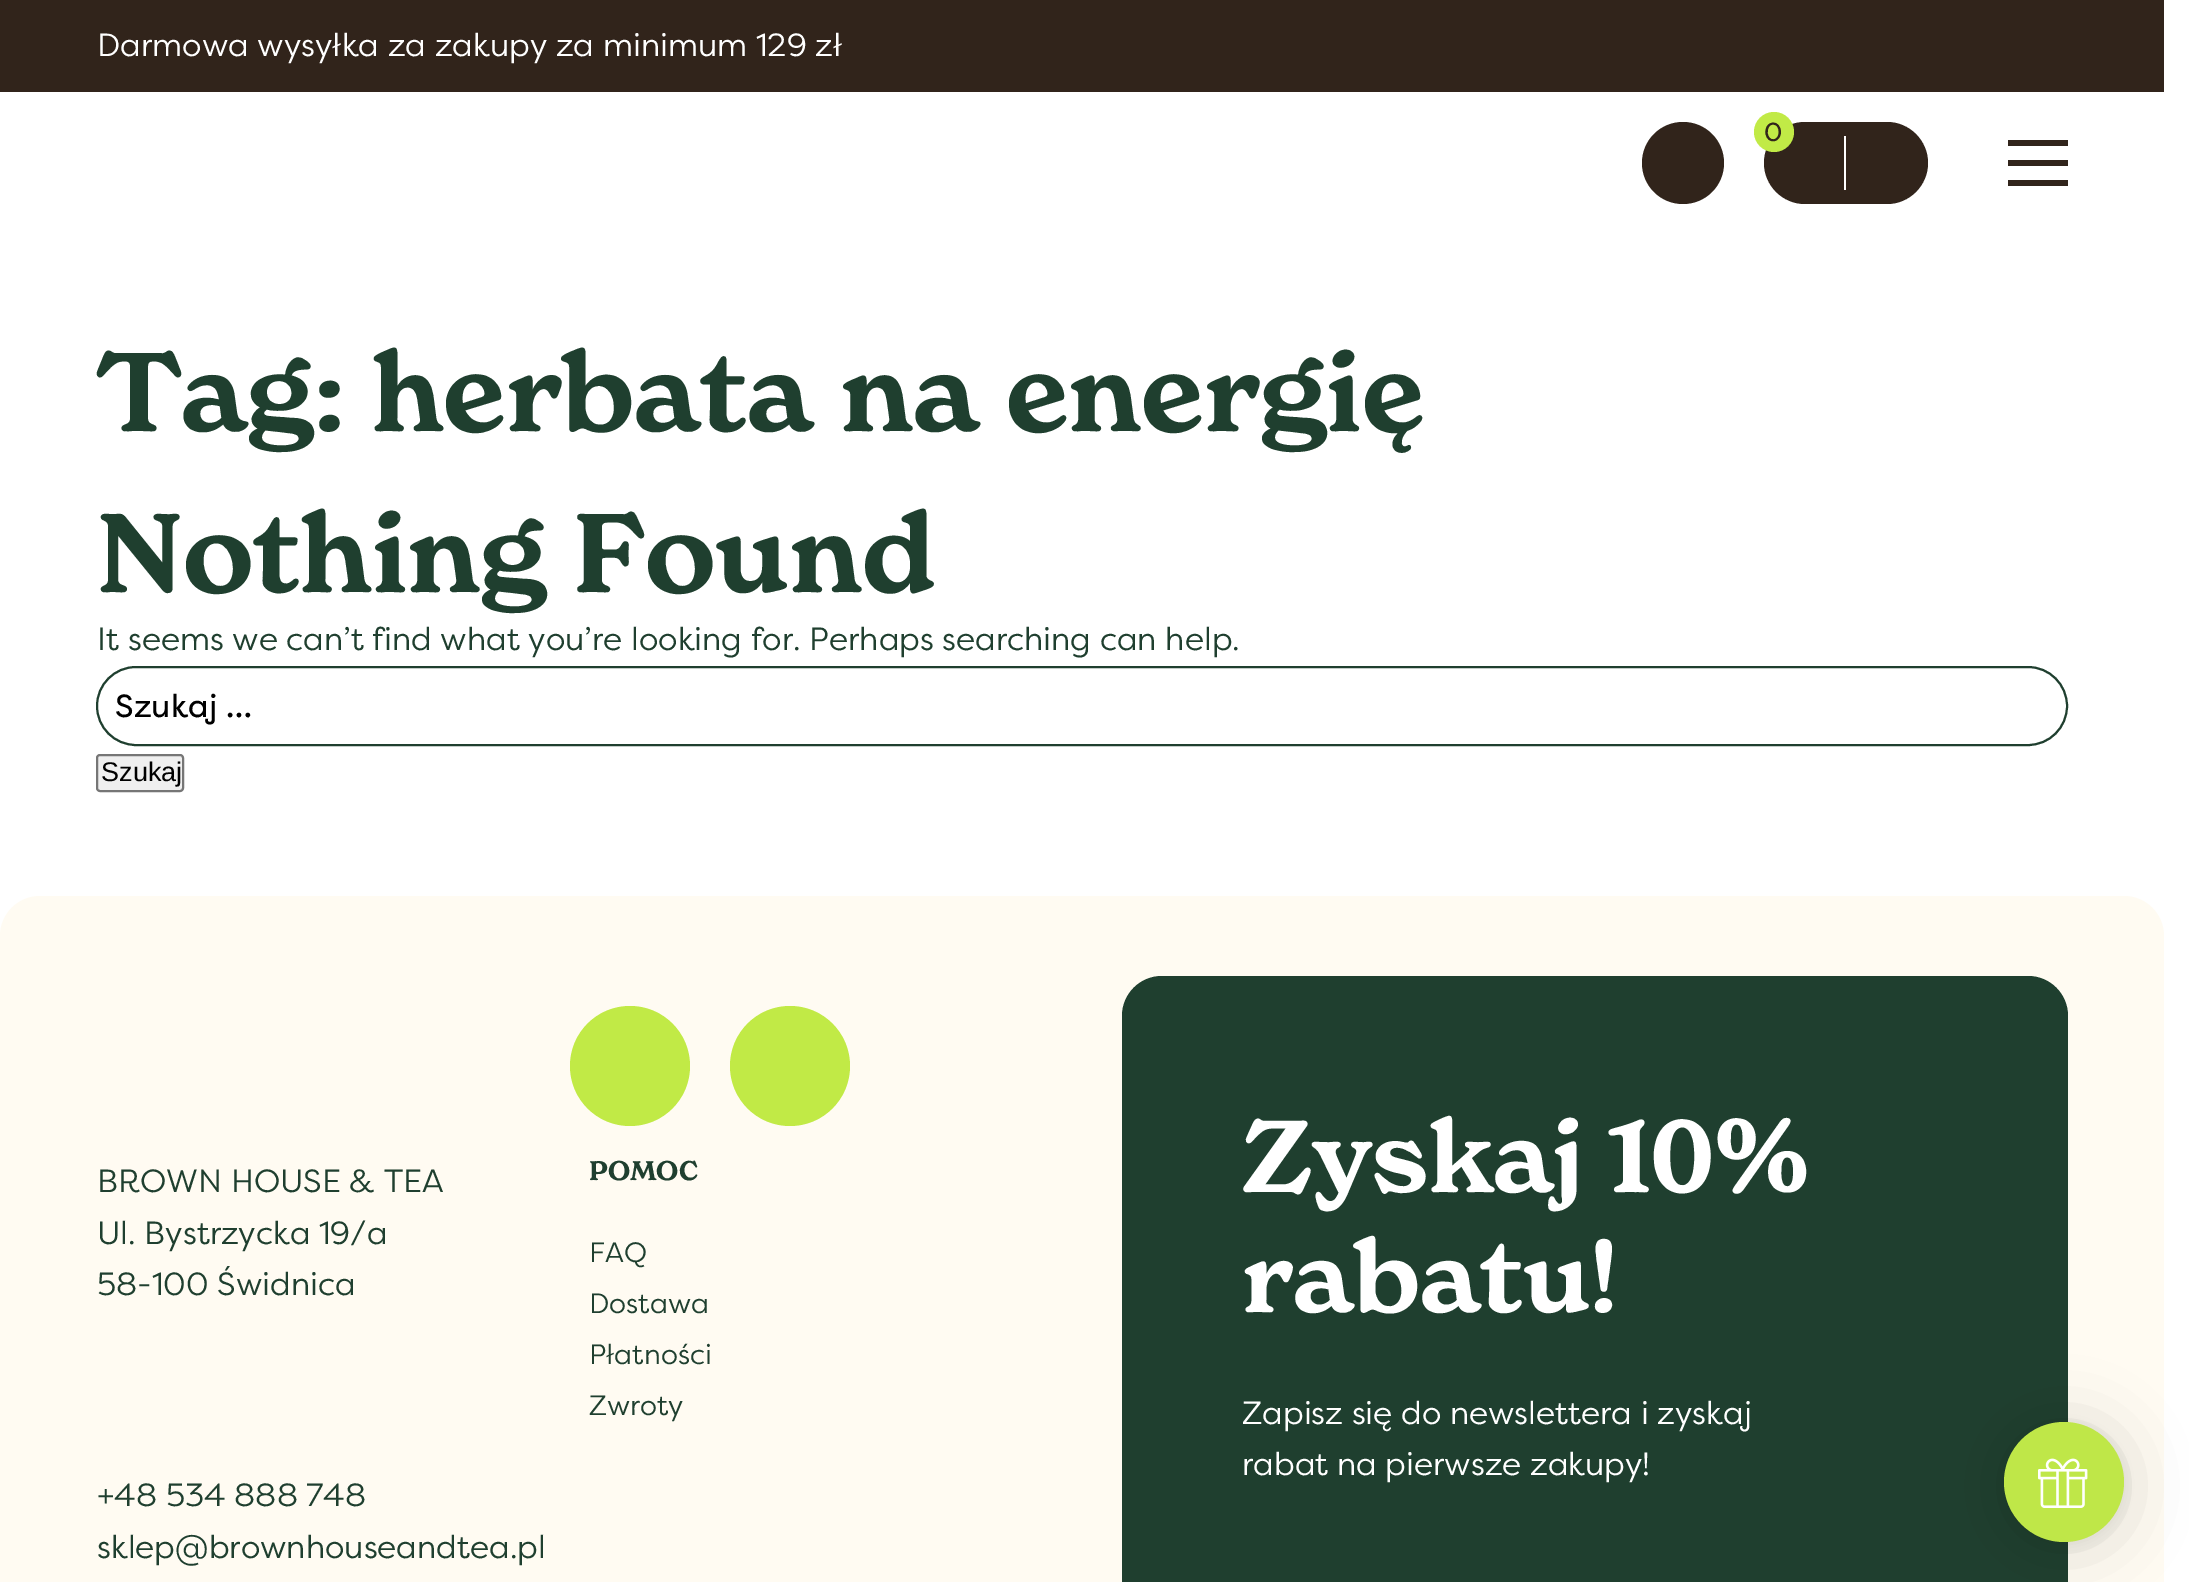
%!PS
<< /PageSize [2189 1582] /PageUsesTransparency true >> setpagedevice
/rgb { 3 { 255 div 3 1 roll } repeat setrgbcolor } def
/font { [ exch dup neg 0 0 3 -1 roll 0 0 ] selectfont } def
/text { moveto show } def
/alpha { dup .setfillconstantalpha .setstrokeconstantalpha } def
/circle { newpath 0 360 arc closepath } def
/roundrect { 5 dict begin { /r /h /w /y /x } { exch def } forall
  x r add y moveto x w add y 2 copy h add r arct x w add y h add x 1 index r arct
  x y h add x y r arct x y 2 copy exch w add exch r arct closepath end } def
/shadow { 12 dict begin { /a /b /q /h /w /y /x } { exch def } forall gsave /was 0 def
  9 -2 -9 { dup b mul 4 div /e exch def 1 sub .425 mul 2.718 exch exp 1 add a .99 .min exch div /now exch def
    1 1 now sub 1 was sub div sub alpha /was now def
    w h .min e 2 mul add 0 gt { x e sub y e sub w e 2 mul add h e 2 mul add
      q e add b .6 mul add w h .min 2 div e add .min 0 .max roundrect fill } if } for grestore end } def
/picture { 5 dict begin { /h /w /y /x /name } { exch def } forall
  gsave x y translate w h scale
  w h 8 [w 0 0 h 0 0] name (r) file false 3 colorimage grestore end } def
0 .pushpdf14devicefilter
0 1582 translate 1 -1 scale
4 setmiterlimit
255 255 255 rgb
0 0 2189 1582 rectfill
49 36 27 rgb
0 0 2164 92 rectfill
1683 163 41 circle fill
1805 122 moveto 41 0 rlineto 0 82 rlineto -41 0 rlineto -22.5 0 -41 -18.5 -41 -41 rcurveto 0 -22.5 18.5 -41 41 -41 rcurveto closepath fill
193 234 70 rgb
1774 132 20 circle fill
255 255 255 rgb
1844 136 2 54 rectfill
49 36 27 rgb
1846 122 moveto 41 0 rlineto 22.5 0 41 18.5 41 41 rcurveto 0 22.5 -18.5 41 -41 41 rcurveto -41 0 rlineto closepath fill
2008 140 60 6 rectfill
2008 160 60 6 rectfill
2008 180 60 6 rectfill
31 63 47 rgb
2 setlinewidth
97 667 1970 78 39 roundrect stroke
239 239 239 rgb
97 755 86 36 3 roundrect gsave fill grestore
118 118 118 rgb
stroke
255 251 242 rgb
0 896 2164 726 40 roundrect fill
193 234 70 rgb
630 1066 60 circle fill
790 1066 60 circle fill
31 63 47 rgb
1122 976 946 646 40 roundrect fill
0 0 0 rgb
2004 1426 120 120 60 32 0.16 shadow
2004 1424 120 120 60 6 0.06 shadow
191 231 72 rgb
2064 1482 60 circle fill
(img_01.rgb) 2038 1458 50 50 picture
/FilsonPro-Regular 32 font
255 255 255 rgb
(Darmowa wysyłka za zakupy za minimum 129 zł) 97 56 text
/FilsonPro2-Regular 26 font
49 36 27 rgb
(0) 1764 141 text
/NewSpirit-SemiBold 109.5 font
31 63 47 rgb
(Tag: herbata na energię) 97 431 text
(Nothing Found) 97 592 text
/FilsonPro-Regular 32 font
(It seems we can’t find what you’re looking for. Perhaps searching can help.) 97 650 text
/FilsonPro2-Regular 32 font
0 0 0 rgb
(Szukaj …) 115 717 text
/LiberationSans-Regular 27 font
(Szukaj) 101 781 text
/FilsonPro-Regular 32 font
31 63 47 rgb
(BROWN HOUSE & TEA) 97 1192 text
(Ul. Bystrzycka 19/a) 97 1244 text
(58-100 Świdnica) 97 1295 text
/NewSpirit-SemiBold 26.5 font
(POMOC) 589 1180 text
/FilsonPro-Regular 28 font
(FAQ) 589 1262 text
(Dostawa) 589 1313 text
(Płatności) 589 1364 text
(Zwroty) 589 1415 text
/FilsonPro-Regular 32 font
(+48 534 888 748) 97 1506 text
(sklep@brownhouseandtea.pl) 97 1558 text
/NewSpirit-SemiBold 100 font
255 255 255 rgb
(Zyskaj 10%) 1242 1192 text
(rabatu!) 1242 1312 text
/FilsonPro-Regular 32 font
(Zapisz się do newslettera i zyskaj) 1242 1424 text
(rabat na pierwsze zakupy!) 1242 1475 text
.poppdf14devicefilter showpage
